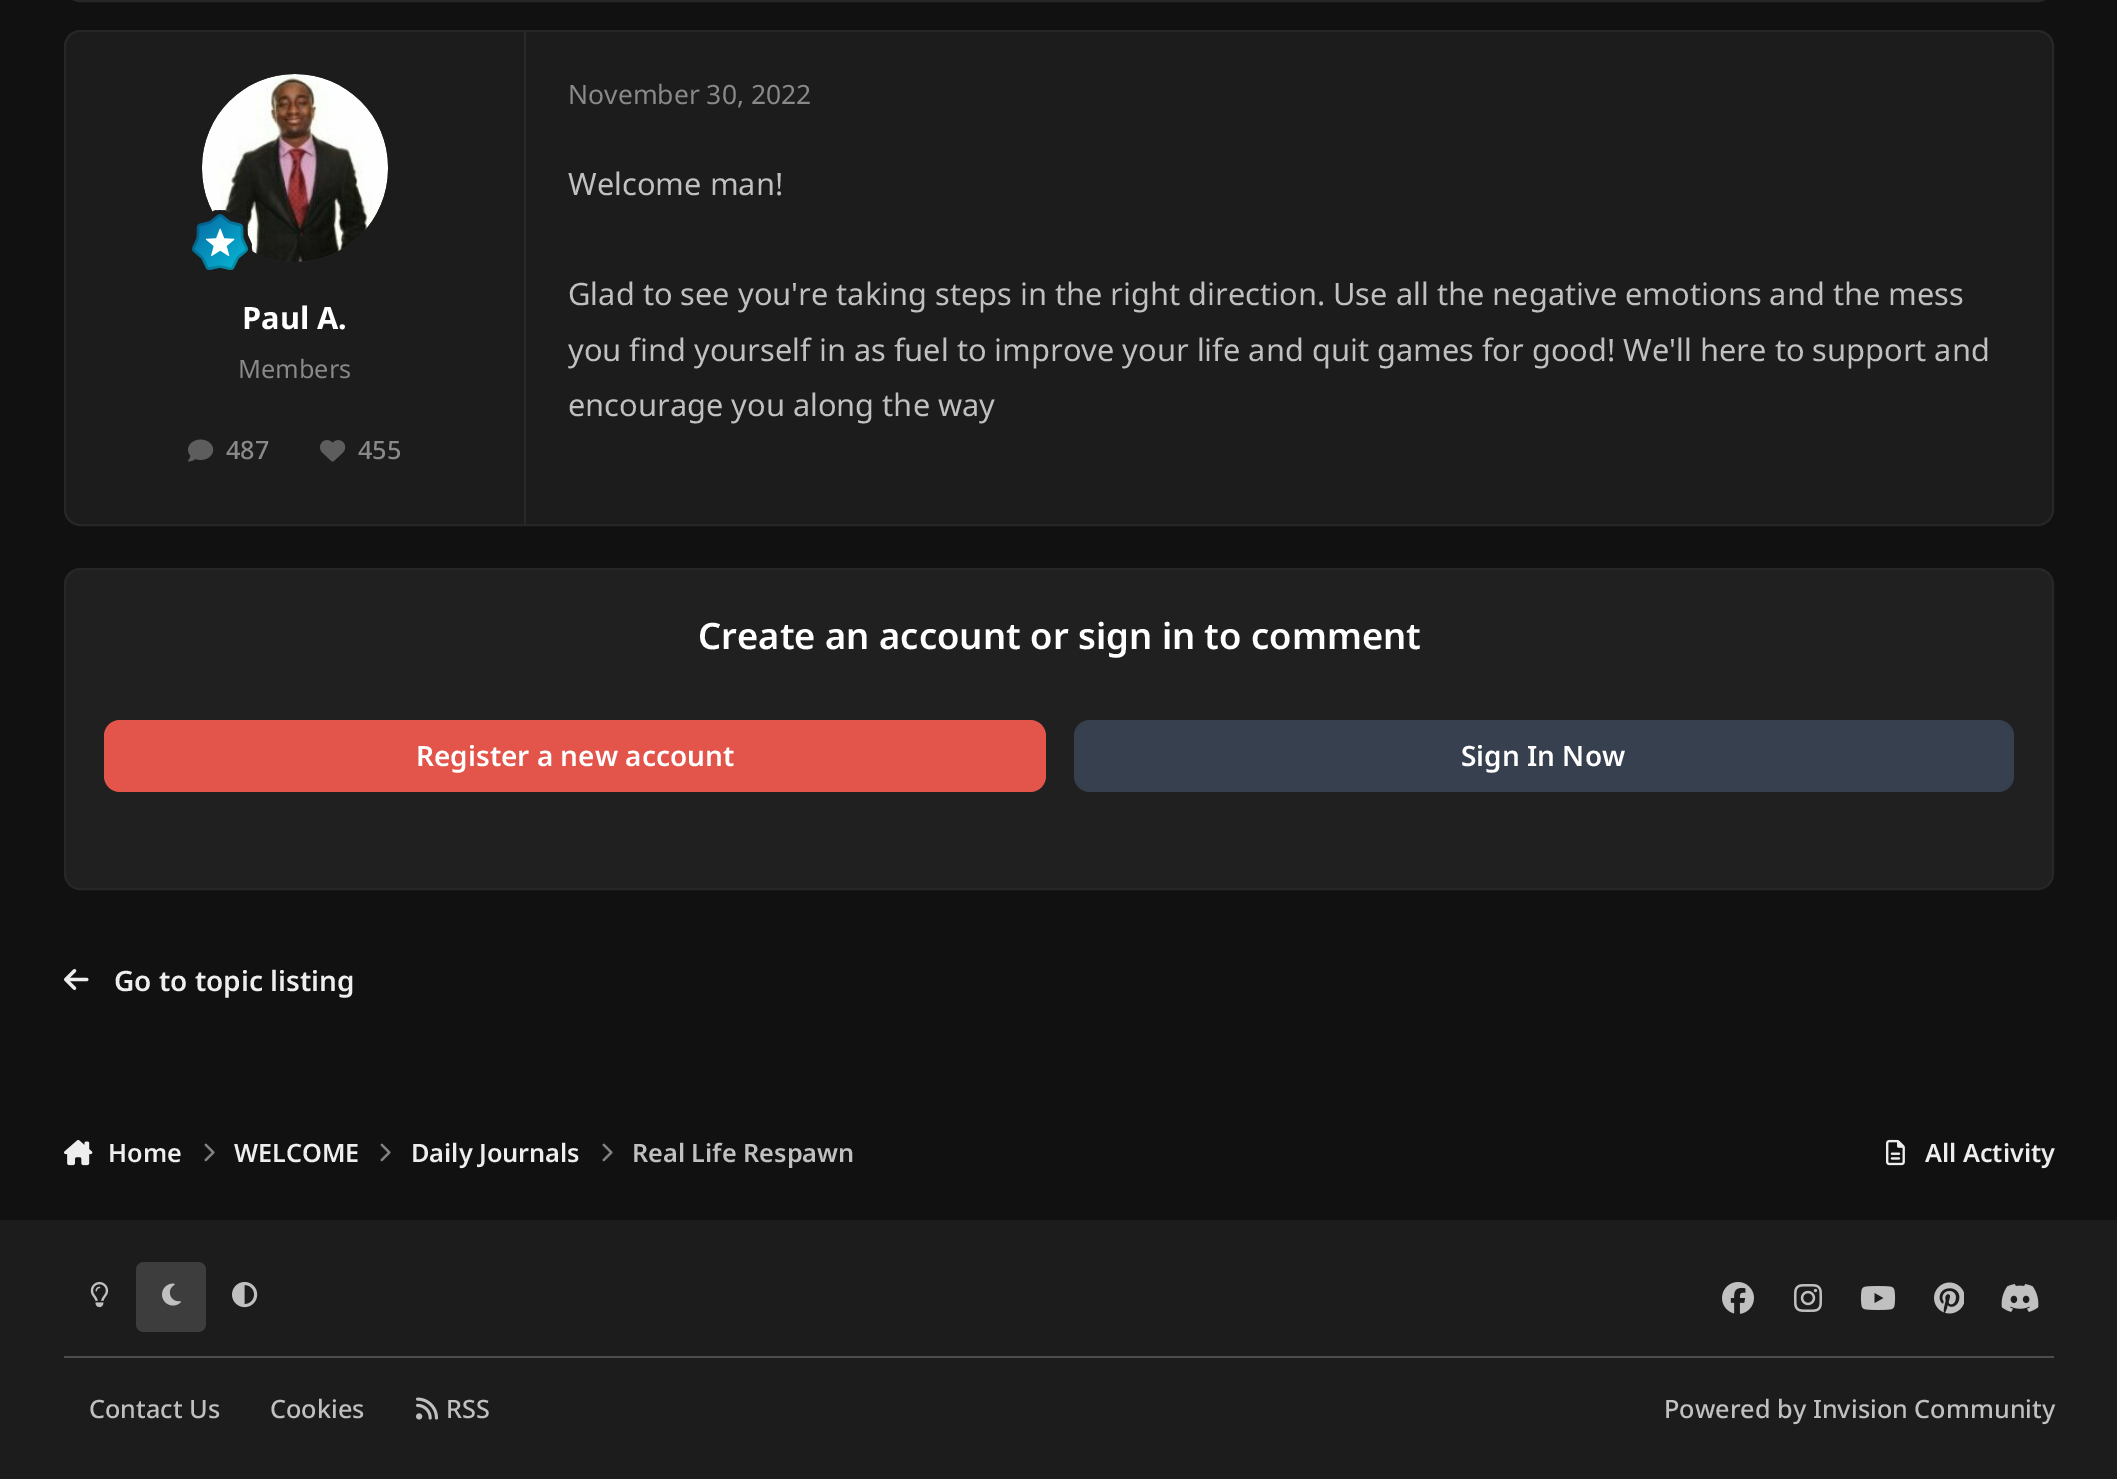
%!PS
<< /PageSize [2117 1479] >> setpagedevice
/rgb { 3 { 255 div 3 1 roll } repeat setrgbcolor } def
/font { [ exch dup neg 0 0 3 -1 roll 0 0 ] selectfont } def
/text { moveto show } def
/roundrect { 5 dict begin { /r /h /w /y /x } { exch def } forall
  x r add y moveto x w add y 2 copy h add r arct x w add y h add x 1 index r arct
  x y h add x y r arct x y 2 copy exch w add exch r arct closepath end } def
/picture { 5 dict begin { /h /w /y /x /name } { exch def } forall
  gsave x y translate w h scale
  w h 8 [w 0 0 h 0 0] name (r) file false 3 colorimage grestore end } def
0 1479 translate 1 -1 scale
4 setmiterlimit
17 17 17 rgb
0 0 2117 1479 rectfill
40 39 39 rgb
2 setlinewidth
65 -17 1988 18 15 roundrect stroke
28 28 28 rgb
65 31 1988 494 15 roundrect gsave fill grestore
40 39 39 rgb
stroke
42 41 42 rgb
524 32 2 492 rectfill
202 74 186 188 93 roundrect fill
(img_01.rgb) 202 74 186 188 picture
(img_02.rgb) 192 210 60 60 picture
(img_03.rgb) 188 439 26 23 picture
(img_04.rgb) 320 440 26 22 picture
33 32 32 rgb
65 569 1988 320 15 roundrect gsave fill grestore
40 39 39 rgb
stroke
227 84 74 rgb
104 720 942 72 16 roundrect fill
54 64 78 rgb
1074 720 940 72 16 roundrect fill
(img_05.rgb) 64 969 25 21 picture
(img_06.rgb) 64 1140 29 26 picture
(img_07.rgb) 204 1143 11 19 picture
(img_07.rgb) 380 1143 11 19 picture
(img_07.rgb) 602 1143 11 19 picture
(img_08.rgb) 1886 1139 19 27 picture
28 28 28 rgb
0 1220 2117 259 rectfill
(img_09.rgb) 90 1282 19 26 picture
61 61 61 rgb
136 1262 70 70 8 roundrect fill
(img_10.rgb) 162 1283 19 23 picture
(img_11.rgb) 232 1281 26 27 picture
(img_12.rgb) 1722 1282 32 32 picture
(img_13.rgb) 1794 1284 28 28 picture
(img_14.rgb) 1860 1286 36 24 picture
(img_15.rgb) 1934 1282 30 32 picture
(img_16.rgb) 2001 1284 38 28 picture
78 77 78 rgb
64 1356 1990 2 rectfill
(img_17.rgb) 416 1397 22 23 picture
/NotoSans-Bold 30.8 font
255 255 255 rgb
(Paul A.) 242 329 text
/NotoSans-Regular 25.25 font
138 136 137 rgb
(Members) 238 378 text
/NotoSans-Medium 25.25 font
(487) 226 459 text
(455) 358 459 text
/NotoSans-Regular 26.5 font
(November 30, 2022) 568 104 text
/NotoSans-Regular 30.8 font
193 192 193 rgb
(Welcome man!) 568 195 text
(Glad to see you're taking steps in the right direction. Use all the negative emotions and the mess) 568 305 text
(you find yourself in as fuel to improve your life and quit games for good! We'll here to support and) 568 361 text
(encourage you along the way) 568 416 text
/NotoSans-SemiBold 36.4 font
255 255 255 rgb
(Create an account or sign in to comment) 698 649 text
/NotoSans-SemiBold 28 font
(Register a new account) 416 766 text
(Sign In Now) 1461 766 text
239 238 238 rgb
(Go to topic listing) 114 991 text
/NotoSans-SemiBold 25.25 font
(Home) 108 1162 text
(WELCOME) 234 1162 text
(Daily Journals) 411 1162 text
193 192 193 rgb
(Real Life Respawn) 632 1162 text
239 238 238 rgb
(All Activity) 1925 1162 text
/NotoSans-Medium 25.25 font
193 192 193 rgb
(Contact Us) 89 1418 text
(Cookies) 270 1418 text
(RSS) 446 1418 text
(Powered by Invision Community) 1664 1418 text
showpage
